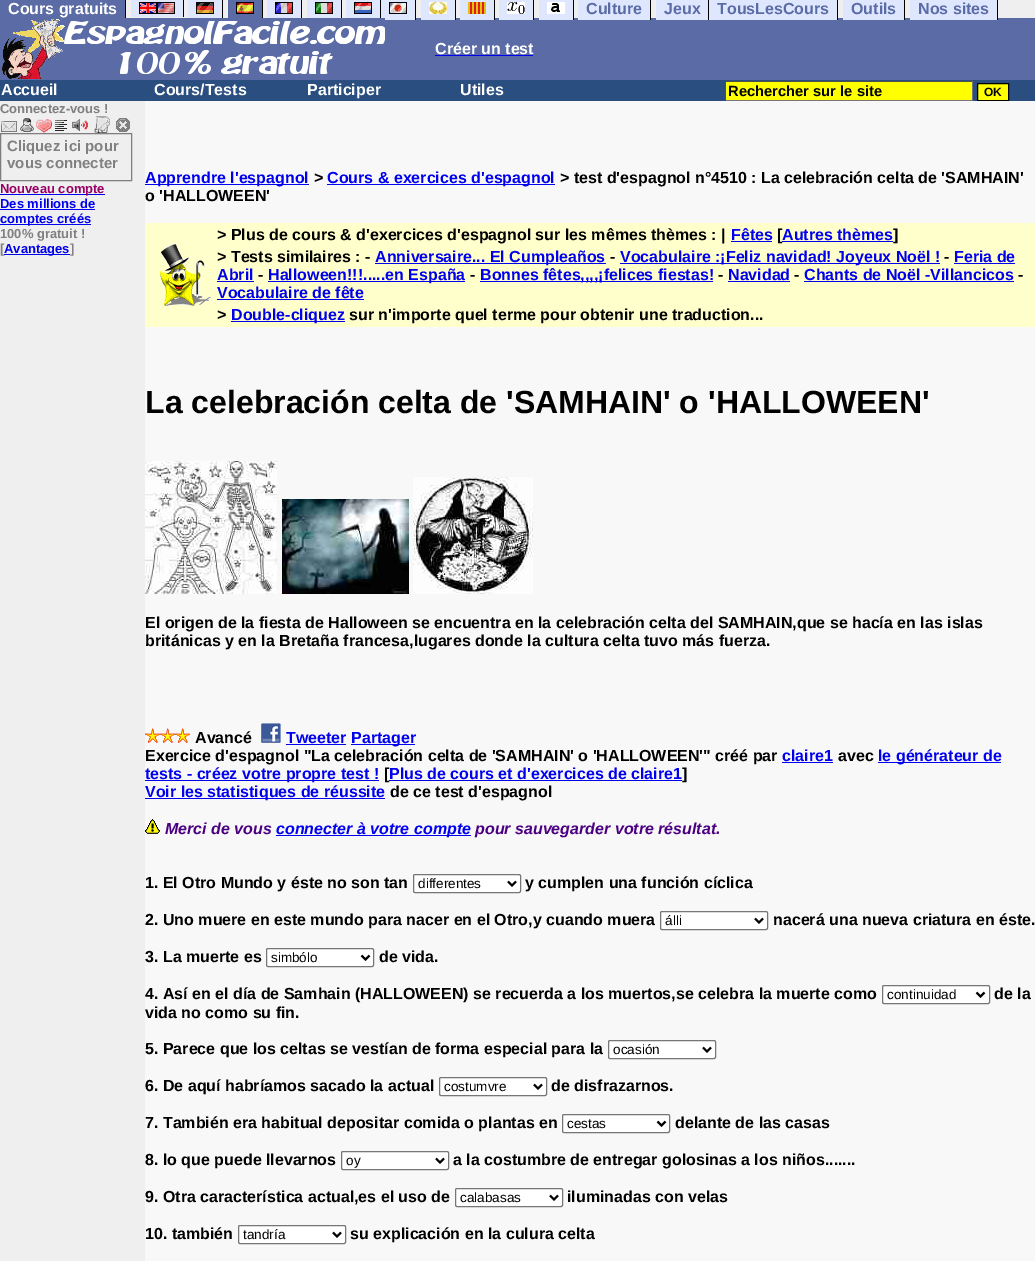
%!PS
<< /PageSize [1035 1261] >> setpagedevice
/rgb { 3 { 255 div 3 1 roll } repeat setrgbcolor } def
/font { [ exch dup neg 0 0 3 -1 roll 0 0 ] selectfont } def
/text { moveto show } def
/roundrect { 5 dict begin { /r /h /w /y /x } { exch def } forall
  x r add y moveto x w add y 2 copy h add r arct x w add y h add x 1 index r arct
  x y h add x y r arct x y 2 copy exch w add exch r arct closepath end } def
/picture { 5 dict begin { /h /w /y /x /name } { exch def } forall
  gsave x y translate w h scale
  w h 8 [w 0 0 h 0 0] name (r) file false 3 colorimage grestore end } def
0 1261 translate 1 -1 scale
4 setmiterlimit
239 239 239 rgb
0 0 1035 1261 rectfill
90 107 165 rgb
0 0 125 18 rectfill
0 18 1035 62 rectfill
0 0 0 rgb
125 0 1 20 rectfill
223 231 255 rgb
131 0 52 17 rectfill
0 0 0 rgb
183 0 1 17 rectfill
223 231 255 rgb
188 0 34 18 rectfill
0 0 0 rgb
222 0 1 20 rectfill
90 107 165 rgb
228 0 34 18 rectfill
0 0 0 rgb
262 0 1 20 rectfill
223 231 255 rgb
267 0 34 18 rectfill
0 0 0 rgb
301 0 1 20 rectfill
223 231 255 rgb
307 0 34 18 rectfill
0 0 0 rgb
341 0 1 20 rectfill
223 231 255 rgb
346 0 34 18 rectfill
0 0 0 rgb
380 0 1 20 rectfill
223 231 255 rgb
381 0 34 20 rectfill
0 0 0 rgb
415 0 1 20 rectfill
223 231 255 rgb
421 0 34 20 rectfill
0 0 0 rgb
455 0 1 20 rectfill
223 231 255 rgb
460 0 34 20 rectfill
0 0 0 rgb
494 0 1 20 rectfill
223 231 255 rgb
499 0 34 20 rectfill
0 0 0 rgb
533 0 1 20 rectfill
223 231 255 rgb
539 0 34 20 rectfill
0 0 0 rgb
573 0 1 20 rectfill
(img_01.rgb) 139 2 18 12 picture
(img_02.rgb) 157 2 18 12 picture
(img_03.rgb) 196 2 18 12 picture
(img_04.rgb) 236 2 18 12 picture
(img_05.rgb) 275 2 18 12 picture
(img_06.rgb) 315 2 18 12 picture
(img_07.rgb) 354 2 18 12 picture
(img_08.rgb) 389 2 18 12 picture
(img_09.rgb) 429 2 18 12 picture
(img_10.rgb) 468 2 18 12 picture
(img_11.rgb) 507 2 18 12 picture
(img_12.rgb) 547 2 18 12 picture
223 231 255 rgb
578 0 72 20 rectfill
0 0 0 rgb
650 0 1 20 rectfill
223 231 255 rgb
656 0 52 20 rectfill
0 0 0 rgb
708 0 1 20 rectfill
223 231 255 rgb
709 0 128 20 rectfill
0 0 0 rgb
837 0 1 20 rectfill
223 231 255 rgb
843 0 61 20 rectfill
0 0 0 rgb
904 0 1 20 rectfill
223 231 255 rgb
910 0 87 20 rectfill
0 0 0 rgb
997 0 1 20 rectfill
(img_13.rgb) 2 18 383 61 picture
0 0 238 rgb
435 55 98 1 rectfill
43 78 128 rgb
0 80 1035 21 rectfill
255 255 0 rgb
726 82 246 18 rectfill
79 79 79 rgb
725 81 248 1 rectfill
118 118 118 rgb
972 81 1 20 rectfill
725 100 248 1 rectfill
79 79 79 rgb
725 81 1 20 rectfill
255 255 0 rgb
977.5 83.5 moveto 31 0 rlineto 0 17 rlineto -31 0 rlineto closepath gsave fill grestore
0 0 0 rgb
stroke
(img_14.rgb) 1 116 129 17 picture
127 125 128 rgb
0.5 133.5 131 47 rectstroke
0 0 238 rgb
0 194 105 1 rectfill
0 209 95 1 rectfill
0 224 91 1 rectfill
248 248 248 rgb
145 101 890 1160 rectfill
0 0 238 rgb
145 184 164 1 rectfill
327 184 228 1 rectfill
255 255 204 rgb
145 223 890 104 rectfill
0 0 238 rgb
731 241 41 1 rectfill
782 241 111 1 rectfill
(img_15.rgb) 160 244 51 62 picture
375 263 231 1 rectfill
620 263 320 1 rectfill
954 263 61 1 rectfill
217 281 37 1 rectfill
268 281 197 1 rectfill
480 281 233 1 rectfill
728 281 62 1 rectfill
804 281 210 1 rectfill
217 299 147 1 rectfill
231 321 114 1 rectfill
(img_16.rgb) 145 461 132 133 picture
(img_17.rgb) 282 499 127 95 picture
(img_18.rgb) 413 477 120 117 picture
(img_19.rgb) 145 728 15 15 picture
(img_19.rgb) 160 728 15 15 picture
(img_19.rgb) 175 728 15 15 picture
(img_20.rgb) 261 723 20 20 picture
286 744 60 1 rectfill
351 744 64 1 rectfill
782 762 51 1 rectfill
878 762 123 1 rectfill
145 780 234 1 rectfill
389 780 293 1 rectfill
145 798 240 1 rectfill
(img_21.rgb) 145 819 15 15 picture
276 835 195 1 rectfill
255 255 255 rgb
413.5 874.5 107 18 1.5 roundrect gsave fill grestore
118 118 118 rgb
stroke
0 0 0 rgb
2 setlinewidth
508 881.5 moveto 4 4 rlineto 4 -4 rlineto stroke
255 255 255 rgb
660.5 911.5 107 18 1.5 roundrect gsave fill grestore
118 118 118 rgb
1 setlinewidth
stroke
0 0 0 rgb
2 setlinewidth
755 918.5 moveto 4 4 rlineto 4 -4 rlineto stroke
255 255 255 rgb
266.5 948.5 107 18 1.5 roundrect gsave fill grestore
118 118 118 rgb
1 setlinewidth
stroke
0 0 0 rgb
2 setlinewidth
361.5 955.5 moveto 4 4 rlineto 4 -4 rlineto stroke
255 255 255 rgb
882.5 985.5 107 18 1.5 roundrect gsave fill grestore
118 118 118 rgb
1 setlinewidth
stroke
0 0 0 rgb
2 setlinewidth
976.5 992.5 moveto 4 4 rlineto 4 -4 rlineto stroke
255 255 255 rgb
608.5 1040.5 107 18 1.5 roundrect gsave fill grestore
118 118 118 rgb
1 setlinewidth
stroke
0 0 0 rgb
2 setlinewidth
703 1047.5 moveto 4 4 rlineto 4 -4 rlineto stroke
255 255 255 rgb
439.5 1077.5 107 18 1.5 roundrect gsave fill grestore
118 118 118 rgb
1 setlinewidth
stroke
0 0 0 rgb
2 setlinewidth
534 1084.5 moveto 4 4 rlineto 4 -4 rlineto stroke
255 255 255 rgb
562.5 1114.5 107 18 1.5 roundrect gsave fill grestore
118 118 118 rgb
1 setlinewidth
stroke
0 0 0 rgb
2 setlinewidth
657.5 1121.5 moveto 4 4 rlineto 4 -4 rlineto stroke
255 255 255 rgb
341.5 1151.5 107 18 1.5 roundrect gsave fill grestore
118 118 118 rgb
1 setlinewidth
stroke
0 0 0 rgb
2 setlinewidth
436 1158.5 moveto 4 4 rlineto 4 -4 rlineto stroke
255 255 255 rgb
455.5 1188.5 107 18 1.5 roundrect gsave fill grestore
118 118 118 rgb
1 setlinewidth
stroke
0 0 0 rgb
2 setlinewidth
550 1195.5 moveto 4 4 rlineto 4 -4 rlineto stroke
255 255 255 rgb
238.5 1225.5 107 18 1.5 roundrect gsave fill grestore
118 118 118 rgb
1 setlinewidth
stroke
0 0 0 rgb
2 setlinewidth
333 1232.5 moveto 4 4 rlineto 4 -4 rlineto stroke
/LiberationSans-Bold 16 font
255 255 255 rgb
(Cours gratuits) 8 14 text
90 107 165 rgb
(Culture) 586 14 text
(Jeux) 664 14 text
(TousLesCours) 717 14 text
(Outils) 851 14 text
(Nos sites) 918 14 text
255 255 255 rgb
(Créer un test) 435 54 text
(Accueil) 1 95 text
(Cours/Tests) 154 95 text
(Participer) 307 95 text
(Utiles) 460 95 text
/LiberationSans-Bold 14.75 font
0 0 0 rgb
(Rechercher sur le site) 728 96 text
/LiberationSans-Bold 12 font
(OK) 984 96 text
/LiberationSans-Bold 13 font
128 128 128 rgb
(Connectez-vous !) 0 113 text
/LiberationSans-Bold 15 font
(Cliquez ici pour) 7 151 text
(vous connecter) 7 168 text
/LiberationSans-Bold 13 font
153 0 102 rgb
(Nouveau compte) 0 193 text
0 0 238 rgb
(Des millions de) 0 208 text
(comptes créés) 0 223 text
128 128 128 rgb
(100% gratuit !) 0 238 text
([) 0 253 text
0 0 238 rgb
4 254 66 1 rectfill
(Avantages) 4 253 text
128 128 128 rgb
(]) 70 253 text
/LiberationSans-Bold 16 font
0 0 238 rgb
(Apprendre l'espagnol) 145 183 text
0 0 0 rgb
(>) 314 183 text
0 0 238 rgb
(Cours & exercices d'espagnol) 327 183 text
0 0 0 rgb
(> test d'espagnol n°4510 : La celebración celta de 'SAMHAIN') 560 183 text
(o 'HALLOWEEN') 145 201 text
(> Plus de cours & d'exercices d'espagnol sur les mêmes thèmes : |) 217 240 text
0 0 238 rgb
(Fêtes) 731 240 text
0 0 0 rgb
([) 777 240 text
0 0 238 rgb
(Autres thèmes) 782 240 text
0 0 0 rgb
(]) 893 240 text
(> Tests similaires : -) 217 262 text
0 0 238 rgb
(Anniversaire... El Cumpleaños) 375 262 text
0 0 0 rgb
(-) 610 262 text
0 0 238 rgb
(Vocabulaire :¡Feliz navidad! Joyeux Noël !) 620 262 text
0 0 0 rgb
(-) 944 262 text
0 0 238 rgb
(Feria de) 954 262 text
(Abril) 217 280 text
0 0 0 rgb
(-) 258 280 text
0 0 238 rgb
(Halloween!!!.....en España) 268 280 text
0 0 0 rgb
(-) 470 280 text
0 0 238 rgb
(Bonnes fêtes,,,,¡felices fiestas!) 480 280 text
0 0 0 rgb
(-) 718 280 text
0 0 238 rgb
(Navidad) 728 280 text
0 0 0 rgb
(-) 794 280 text
0 0 238 rgb
(Chants de Noël -Villancicos) 804 280 text
0 0 0 rgb
(-) 1018 280 text
0 0 238 rgb
(Vocabulaire de fête) 217 298 text
0 0 0 rgb
(>) 217 320 text
0 0 238 rgb
(Double-cliquez) 231 320 text
0 0 0 rgb
(sur n'importe quel terme pour obtenir une traduction...) 349 320 text
/LiberationSans-Bold 32 font
(La celebración celta de 'SAMHAIN' o 'HALLOWEEN') 145 413 text
/LiberationSans-Bold 16 font
(El origen de la fiesta de Halloween se encuentra en la celebración celta del SAMHAIN,que se hacía en las islas) 145 628 text
(británicas y en la Bretaña francesa,lugares donde la cultura celta tuvo más fuerza.) 145 646 text
(Avancé) 195 743 text
0 0 238 rgb
(Tweeter) 286 743 text
(Partager) 351 743 text
0 0 0 rgb
(Exercice d'espagnol "La celebración celta de 'SAMHAIN' o 'HALLOWEEN'" créé par) 145 761 text
0 0 238 rgb
(claire1) 782 761 text
0 0 0 rgb
(avec) 838 761 text
0 0 238 rgb
(le générateur de) 878 761 text
(tests - créez votre propre test !) 145 779 text
0 0 0 rgb
([) 384 779 text
0 0 238 rgb
(Plus de cours et d'exercices de claire1) 389 779 text
0 0 0 rgb
(]) 682 779 text
0 0 238 rgb
(Voir les statistiques de réussite) 145 797 text
0 0 0 rgb
(de ce test d'espagnol) 390 797 text
/LiberationSans-BoldItalic 16 font
75 0 130 rgb
(Merci de vous) 165 834 text
0 0 238 rgb
(connecter à votre compte) 276 834 text
75 0 130 rgb
(pour sauvegarder votre résultat.) 475 834 text
/LiberationSans-Bold 16 font
0 0 0 rgb
(1. El Otro Mundo y éste no son tan) 145 888 text
/LiberationSans-Regular 13.5 font
(differentes) 418 888 text
/LiberationSans-Bold 16 font
(y cumplen una función cíclica) 525 888 text
(2. Uno muere en este mundo para nacer en el Otro,y cuando muera) 145 925 text
/LiberationSans-Regular 13.5 font
(álli) 665 925 text
/LiberationSans-Bold 16 font
(nacerá una nueva criatura en éste.) 773 925 text
(3. La muerte es) 145 962 text
/LiberationSans-Regular 13.5 font
(simbólo) 271 962 text
/LiberationSans-Bold 16 font
(de vida.) 379 962 text
(4. Así en el día de Samhain \(HALLOWEEN\) se recuerda a los muertos,se celebra la muerte como) 145 999 text
/LiberationSans-Regular 13.5 font
(continuidad) 887 999 text
/LiberationSans-Bold 16 font
(de la) 994 999 text
(vida no como su fin.) 145 1018 text
(5. Parece que los celtas se vestían de forma especial para la) 145 1054 text
/LiberationSans-Regular 13.5 font
(ocasión) 613 1054 text
/LiberationSans-Bold 16 font
(6. De aquí habríamos sacado la actual) 145 1091 text
/LiberationSans-Regular 13.5 font
(costumvre) 444 1091 text
/LiberationSans-Bold 16 font
(de disfrazarnos.) 551 1091 text
(7. También era habitual depositar comida o plantas en) 145 1128 text
/LiberationSans-Regular 13.5 font
(cestas) 567 1128 text
/LiberationSans-Bold 16 font
(delante de las casas) 675 1128 text
(8. lo que puede llevarnos) 145 1165 text
/LiberationSans-Regular 13.5 font
(oy) 346 1165 text
/LiberationSans-Bold 16 font
(a la costumbre de entregar golosinas a los niños.......) 453 1165 text
(9. Otra característica actual,es el uso de) 145 1202 text
/LiberationSans-Regular 13.5 font
(calabasas) 460 1202 text
/LiberationSans-Bold 16 font
(iluminadas con velas) 567 1202 text
(10. también) 145 1239 text
/LiberationSans-Regular 13.5 font
(tandría) 243 1239 text
/LiberationSans-Bold 16 font
(su explicación en la culura celta) 350 1239 text
showpage
